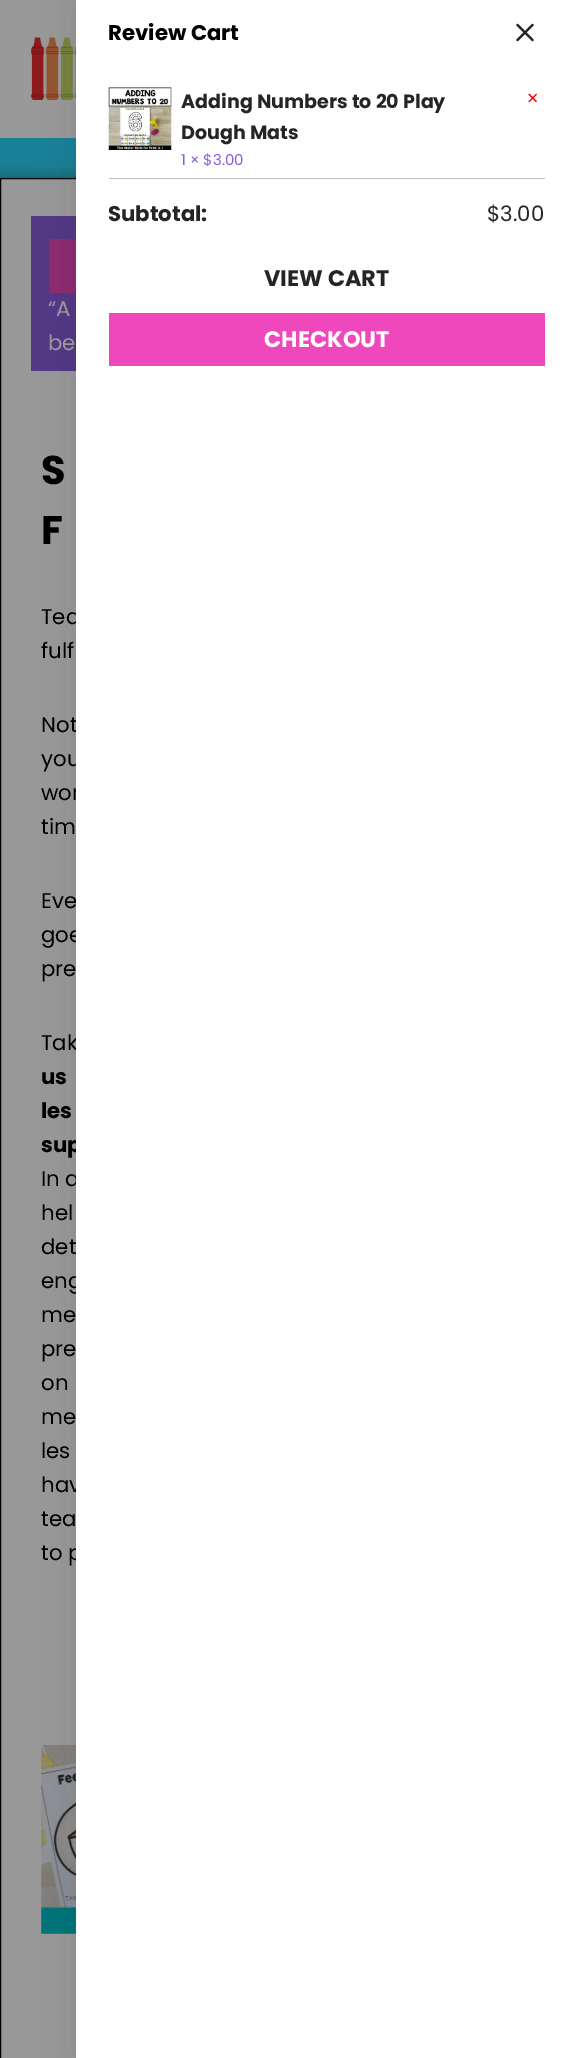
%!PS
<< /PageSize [576 2058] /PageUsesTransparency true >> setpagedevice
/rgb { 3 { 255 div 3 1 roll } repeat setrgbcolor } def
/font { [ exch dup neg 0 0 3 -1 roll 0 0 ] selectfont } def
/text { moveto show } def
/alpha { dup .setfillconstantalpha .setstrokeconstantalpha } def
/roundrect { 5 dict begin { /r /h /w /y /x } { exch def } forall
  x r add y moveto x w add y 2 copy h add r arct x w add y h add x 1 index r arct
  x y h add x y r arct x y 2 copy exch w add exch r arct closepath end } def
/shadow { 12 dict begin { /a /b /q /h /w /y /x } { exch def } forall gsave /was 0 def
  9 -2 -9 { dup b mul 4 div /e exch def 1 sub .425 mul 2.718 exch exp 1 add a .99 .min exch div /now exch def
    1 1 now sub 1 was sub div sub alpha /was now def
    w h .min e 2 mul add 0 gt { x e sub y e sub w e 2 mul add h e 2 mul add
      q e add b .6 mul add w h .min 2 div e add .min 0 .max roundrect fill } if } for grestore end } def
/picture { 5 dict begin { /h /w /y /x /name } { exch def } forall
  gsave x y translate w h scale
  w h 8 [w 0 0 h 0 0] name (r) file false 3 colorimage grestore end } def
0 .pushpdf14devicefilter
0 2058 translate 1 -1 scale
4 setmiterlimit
25 130 153 rgb
0 0 576 2058 rectfill
153 153 153 rgb
0 0 76 138 rectfill
(img_03.rgb) 31 37 45 63 picture
22 22 22 rgb
-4 174 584 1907 0 7.5 0.3 shadow
153 153 153 rgb
1 179 75 1879 rectfill
0 0 0 rgb
0.5 178.5 575 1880 rectstroke
83 56 135 rgb
31 216 45 155 rectfill
143 43 113 rgb
49 239 27 54 rectfill
(img_04.rgb) 41 1745 35 189 picture
0 0 0 rgb
76 0 500 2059 0 20 0.1 shadow
/Poppins-Regular 21.25 font
153 153 153 rgb
(“A) 48 316 text
(be) 48 350 text
/Poppins-Bold 40 font
0 0 0 rgb
(S) 41 484 text
(F) 41 544 text
/Poppins-Regular 21.25 font
(Tea) 41 624 text
(fulf) 41 658 text
(Not) 41 732 text
(you) 41 766 text
(wor) 41 800 text
(tim) 41 834 text
(Eve) 41 908 text
(goe) 41 942 text
(pre) 41 976 text
(Tak) 41 1050 text
/Poppins-Bold 21.25 font
(us) 41 1084 text
(les) 41 1118 text
(sup) 41 1152 text
/Poppins-Regular 21.25 font
(In a) 41 1186 text
(hel) 41 1220 text
(det) 41 1254 text
(eng) 41 1288 text
(me) 41 1322 text
(pre) 41 1356 text
(on) 41 1390 text
(me) 41 1424 text
(les) 41 1458 text
(hav) 41 1492 text
(tea) 41 1526 text
(to p) 41 1560 text
255 255 255 rgb
76 0 500 2058 rectfill
/NotoSans-Regular 20 font
255 0 0 rgb
(×) 527 105 text
/Poppins-Regular 15 font
139 94 225 rgb
(1 × $3.00) 181 165 text
/Poppins-Bold 19.1 font
37 37 37 rgb
(Dough Mats) 181 139 text
(Adding Numbers to 20 Play) 181 108 text
(img_02.rgb) 108 87 64 63 picture
238 72 188 rgb
109 313 436 53 rectfill
/Poppins-Bold 22.5 font
255 255 255 rgb
(CHECKOUT) 264 347 text
37 37 37 rgb
(VIEW CART) 264 286 text
/Poppins-Regular 21.25 font
($3.00) 487 221 text
/Poppins-Bold 21.25 font
(Subtotal:) 108 221 text
189 189 189 rgb
109 178 436 1 rectfill
(img_01.rgb) 516 23 18 19 picture
0 0 0 rgb
(Review Cart) 108 40 text
.poppdf14devicefilter showpage
